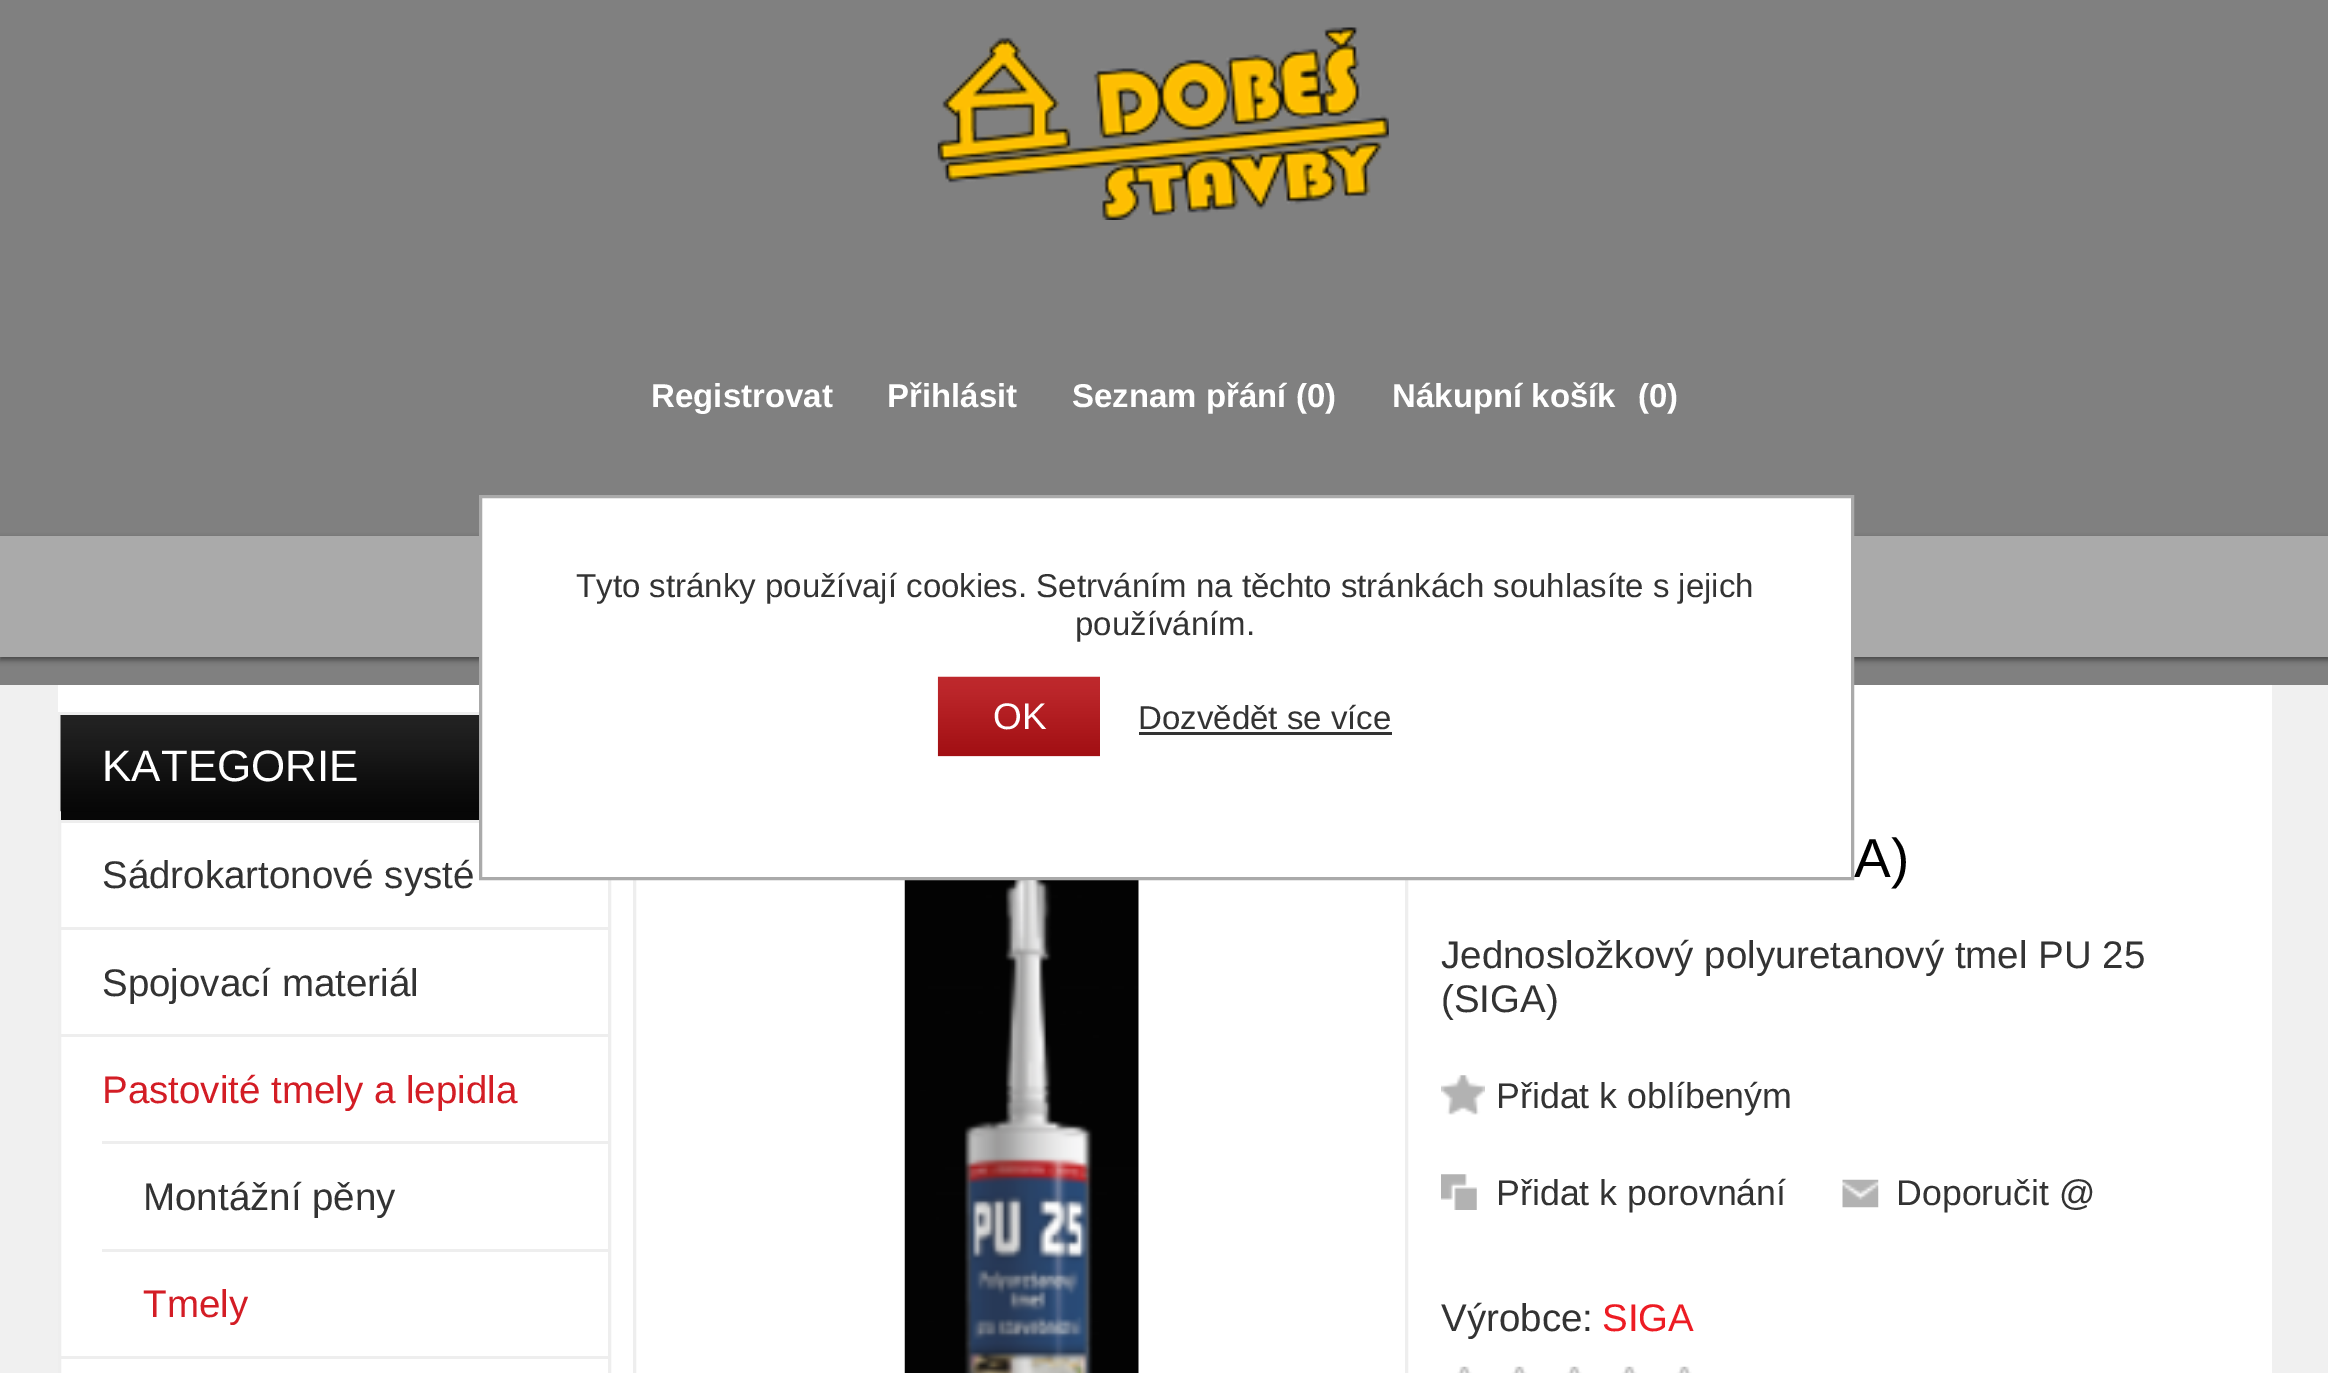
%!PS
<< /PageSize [2328 1373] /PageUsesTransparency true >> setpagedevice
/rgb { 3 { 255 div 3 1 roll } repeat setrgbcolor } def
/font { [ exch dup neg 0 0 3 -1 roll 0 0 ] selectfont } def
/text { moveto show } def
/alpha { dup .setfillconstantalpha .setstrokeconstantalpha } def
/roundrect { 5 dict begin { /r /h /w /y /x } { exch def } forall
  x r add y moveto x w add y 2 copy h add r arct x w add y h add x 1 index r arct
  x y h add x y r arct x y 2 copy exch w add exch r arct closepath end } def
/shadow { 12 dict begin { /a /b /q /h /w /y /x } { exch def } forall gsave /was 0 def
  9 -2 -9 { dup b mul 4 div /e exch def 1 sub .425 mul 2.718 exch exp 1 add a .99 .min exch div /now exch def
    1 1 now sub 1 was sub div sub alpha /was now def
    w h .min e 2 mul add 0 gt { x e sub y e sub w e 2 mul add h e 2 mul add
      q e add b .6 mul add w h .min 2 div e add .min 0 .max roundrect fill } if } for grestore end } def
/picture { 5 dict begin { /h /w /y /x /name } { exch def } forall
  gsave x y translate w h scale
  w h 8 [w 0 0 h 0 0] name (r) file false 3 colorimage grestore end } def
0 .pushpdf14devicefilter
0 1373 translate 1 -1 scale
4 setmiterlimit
240 240 240 rgb
0 0 2328 1373 rectfill
128 128 128 rgb
0 0 2328 685 rectfill
(img_01.rgb) 937 27 452 193 picture
69 69 69 rgb
0 539 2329 121 0 3 1 shadow
170 170 170 rgb
0 536 2328 121 rectfill
255 255 255 rgb
58 685 2214 688 rectfill
238 238 238 rgb
3 setlinewidth
59.5 713.5 550 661 rectstroke
7 7 7 rgb
61 811 418 9 rectfill
(img_02.rgb) 60 715 419 97 picture
238 238 238 rgb
61 820 418 3 rectfill
61 927 547 3 rectfill
61 1034 547 3 rectfill
102 1141 506 3 rectfill
102 1249 506 3 rectfill
61 1356 547 3 rectfill
634.5 829.5 772 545 rectstroke
(img_03.rgb) 904 880 235 493 picture
(img_04.rgb) 1441 1075 44 40 picture
(img_05.rgb) 1441 1174 36 36 picture
(img_06.rgb) 1842 1179 37 29 picture
(img_07.rgb) 1457 1366 235 7 picture
/LiberationSans-Bold 33 font
255 255 255 rgb
(Registrovat) 651 407 text
(Přihlásit) 887 407 text
(Seznam přání \(0\)) 1072 407 text
(Nákupní košík) 1392 407 text
(\(0\)) 1638 407 text
/LiberationSans-Regular 44 font
(KATEGORIE) 102 781 text
/LiberationSans-Regular 38.5 font
51 51 51 rgb
(Sádrokartonové systé) 102 888 text
(Spojovací materiál) 102 996 text
211 29 37 rgb
(Pastovité tmely a lepidla) 102 1103 text
51 51 51 rgb
(Montážní pěny) 143 1210 text
211 29 37 rgb
(Tmely) 143 1317 text
/LiberationSans-Regular 55 font
0 0 0 rgb
(A\)) 1854 877 text
/LiberationSans-Regular 38.5 font
51 51 51 rgb
(Jednosložkový polyuretanový tmel PU 25) 1441 968 text
(\(SIGA\)) 1441 1012 text
/LiberationSans-Regular 35.75 font
(Přidat k oblíbeným) 1496 1108 text
(Přidat k porovnání) 1496 1205 text
(Doporučit @) 1896 1205 text
/LiberationSans-Regular 38.5 font
(Výrobce:) 1441 1331 text
237 28 36 rgb
(SIGA) 1602 1331 text
255 255 255 rgb
480.5 496.5 moveto 1372 0 rlineto 0 382 rlineto -1372 0 rlineto closepath gsave fill grestore
170 170 170 rgb
stroke
/LiberationSans-Regular 33 font
51 51 51 rgb
(Tyto stránky používají cookies. Setrváním na těchto stránkách souhlasíte s jejich) 576 597 text
(používáním.) 1075 635 text
(img_08.rgb) 937 676 163 81 picture
/LiberationSans-Regular 37 font
255 255 255 rgb
(OK) 993 729 text
/LiberationSans-Regular 33 font
51 51 51 rgb
(Dozvědět se více) 1138 729 text
1139 732 253 3 rectfill
.poppdf14devicefilter showpage
